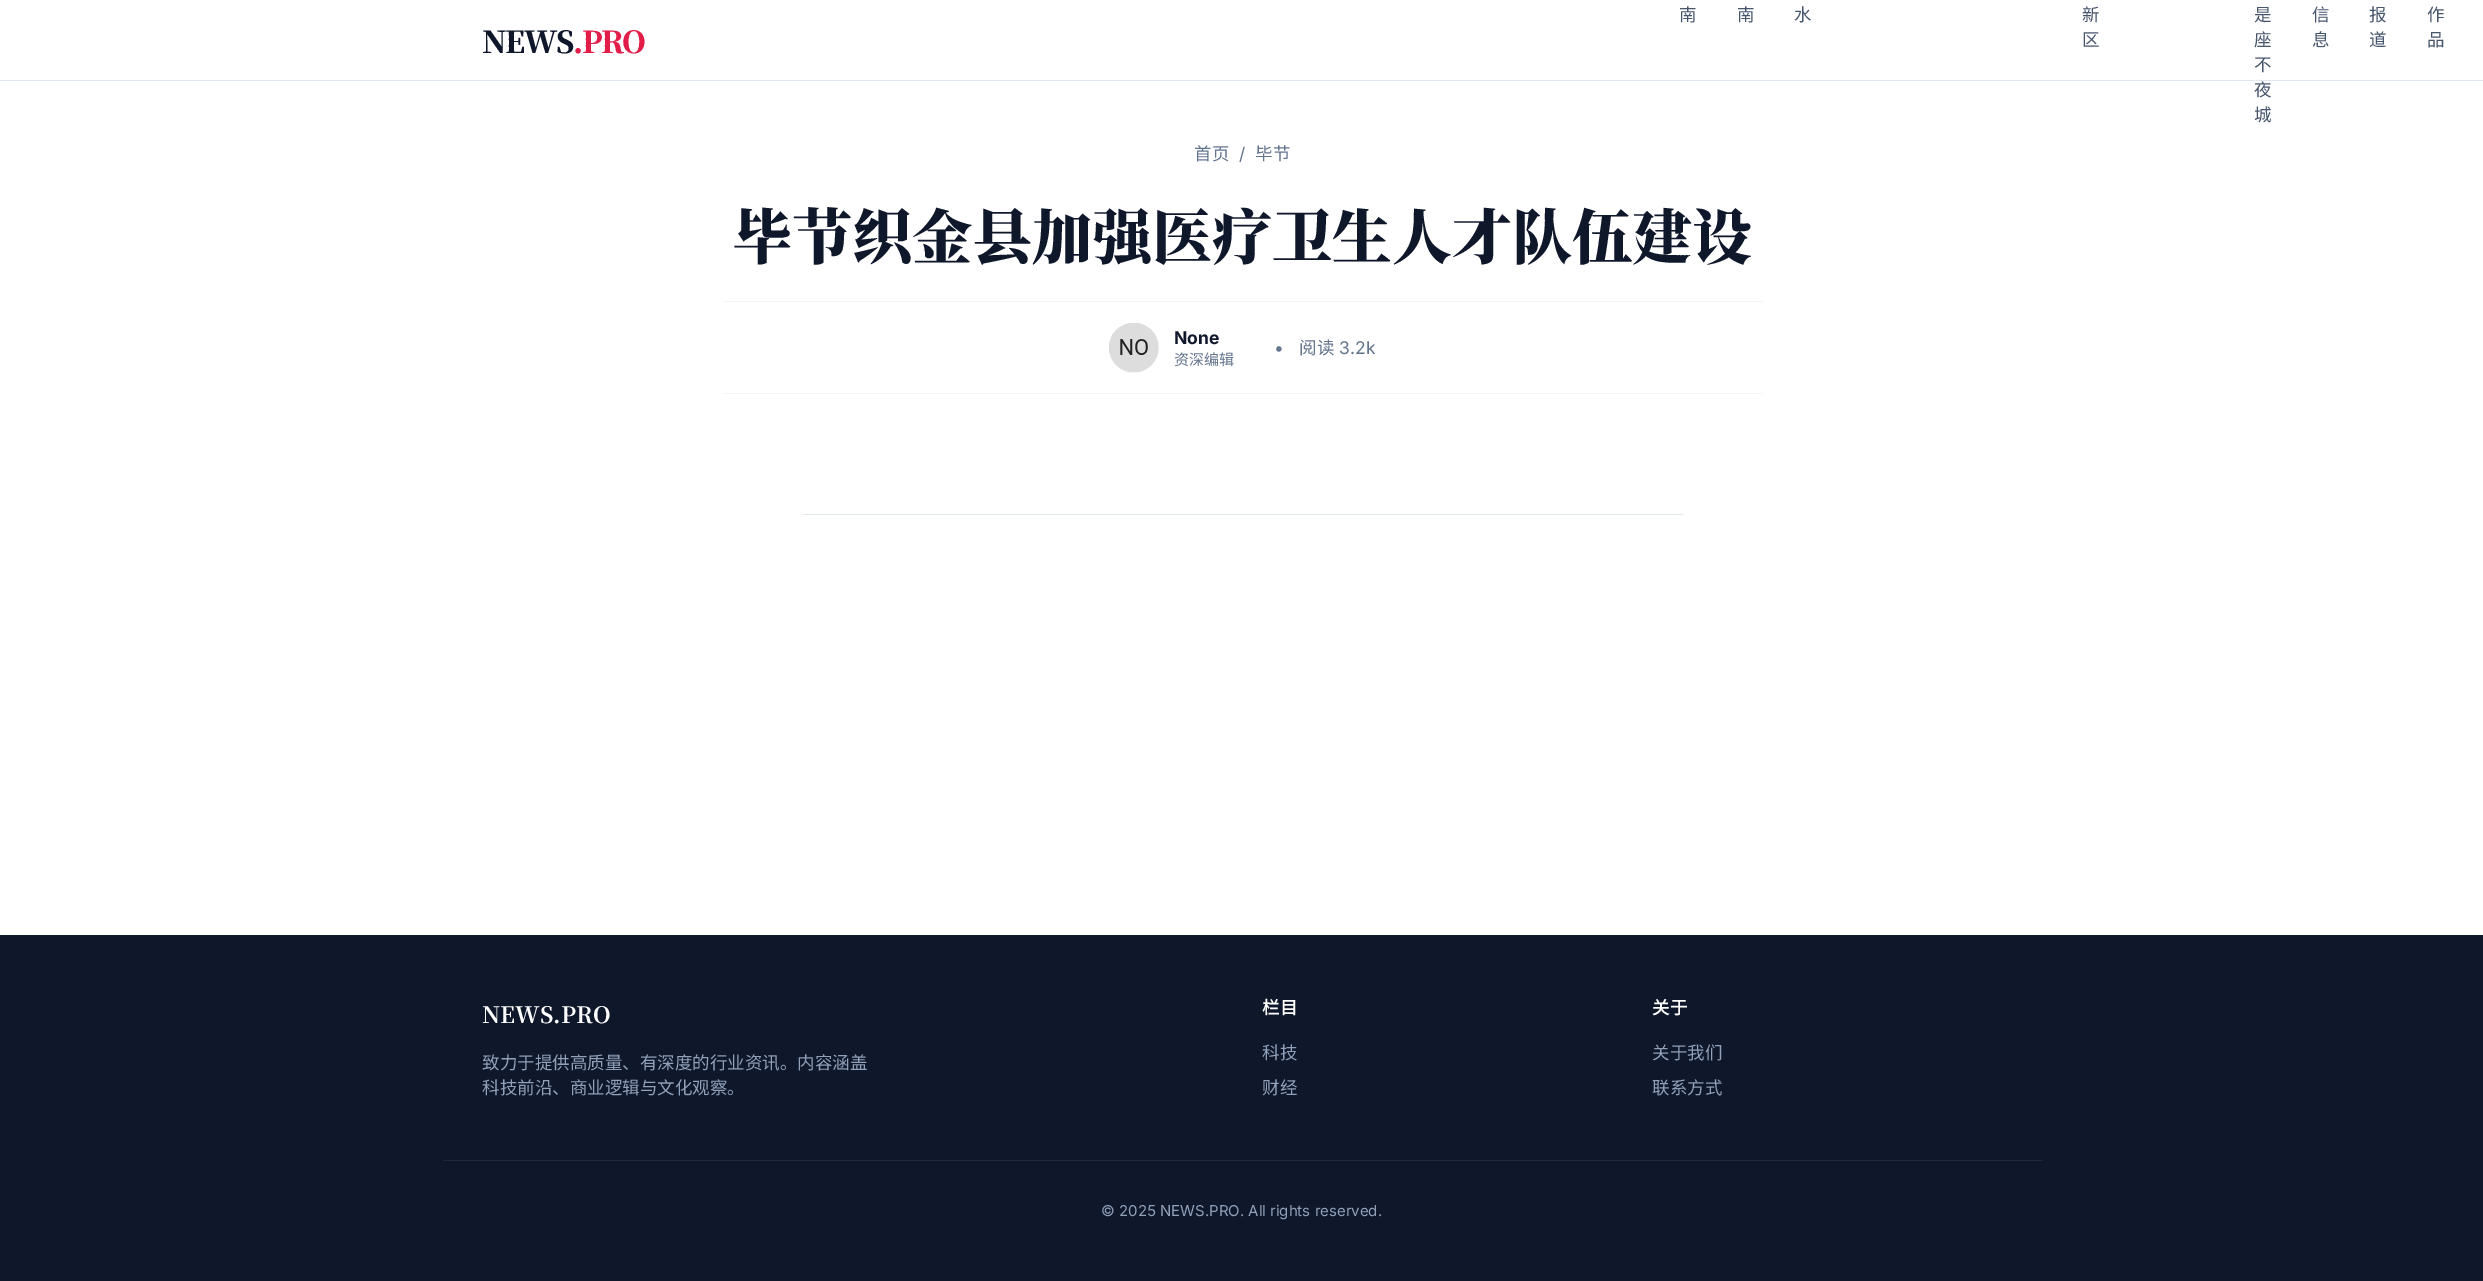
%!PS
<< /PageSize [2483 1281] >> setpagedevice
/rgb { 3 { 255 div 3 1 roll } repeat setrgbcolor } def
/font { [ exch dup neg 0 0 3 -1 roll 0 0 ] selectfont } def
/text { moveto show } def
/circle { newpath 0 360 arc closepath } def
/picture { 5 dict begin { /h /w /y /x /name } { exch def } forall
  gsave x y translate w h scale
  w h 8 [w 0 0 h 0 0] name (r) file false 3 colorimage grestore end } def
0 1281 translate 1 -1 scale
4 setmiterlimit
255 255 255 rgb
0 0 2483 1281 rectfill
226 232 240 rgb
0 80 2483 1 rectfill
241 245 249 rgb
723 301 1040 1 rectfill
723 393 1040 1 rectfill
1134 348 25 circle fill
(img_01.rgb) 1109 323 50 49 picture
226 232 240 rgb
803 514 880 1 rectfill
15 23 43 rgb
0 935 2483 346 rectfill
29 41 61 rgb
443 1160 1600 1 rectfill
/NotoSerifSC-Black 30 font
15 23 43 rgb
482 53 moveto -1.5 0 (NEWS) ashow
225 29 72 rgb
573 53 moveto -1.5 0 (.PRO) ashow
/NotoSansCJKSC-Regular 17.5 font
69 85 108 rgb
(南) 1679 21 text
(南) 1737 21 text
(水) 1794 21 text
(新) 2082 21 text
(区) 2082 46 text
(是) 2254 21 text
(座) 2254 46 text
(不) 2254 71 text
(夜) 2254 96 text
(城) 2254 121 text
(信) 2312 21 text
(息) 2312 46 text
(报) 2369 21 text
(道) 2369 46 text
(作) 2427 21 text
(品) 2427 46 text
98 116 142 rgb
(首页) 1194 160 text
/Inter-Regular 17.5 font
(/) 1239 160 text
/NotoSansCJKSC-Regular 17.5 font
(毕节) 1255 160 text
/NotoSerifSC-Black 60 font
15 23 43 rgb
(毕节织金县加强医疗卫生人才队伍建设) 732 259 text
/Inter-Bold 17.5 font
(None) 1174 344 text
/NotoSansCJKSC-Regular 15 font
98 116 142 rgb
(资深编辑) 1174 365 text
/Inter-Regular 17.5 font
(•) 1274 354 text
/NotoSansCJKSC-Regular 17.5 font
(阅读) 1299 354 text
/Inter-Regular 17.5 font
(3.2k) 1339 354 text
/NotoSerifSC-Bold 22.5 font
255 255 255 rgb
(NEWS.PRO) 482 1023 text
/NotoSansCJKSC-Regular 17.5 font
144 161 185 rgb
(致力于提供高质量、有深度的行业资讯。内容涵盖) 482 1069 text
(科技前沿、商业逻辑与文化观察。) 482 1094 text
/NotoSansCJKSC-Bold 17.5 font
255 255 255 rgb
(栏目) 1262 1014 text
/NotoSansCJKSC-Regular 17.5 font
144 161 185 rgb
(科技) 1262 1059 text
(财经) 1262 1094 text
/NotoSansCJKSC-Bold 17.5 font
255 255 255 rgb
(关于) 1652 1014 text
/NotoSansCJKSC-Regular 17.5 font
144 161 185 rgb
(关于我们) 1652 1059 text
(联系方式) 1652 1094 text
/Inter-Regular 15 font
(© 2025 NEWS.PRO. All rights reserved.) 1101 1216 text
showpage
